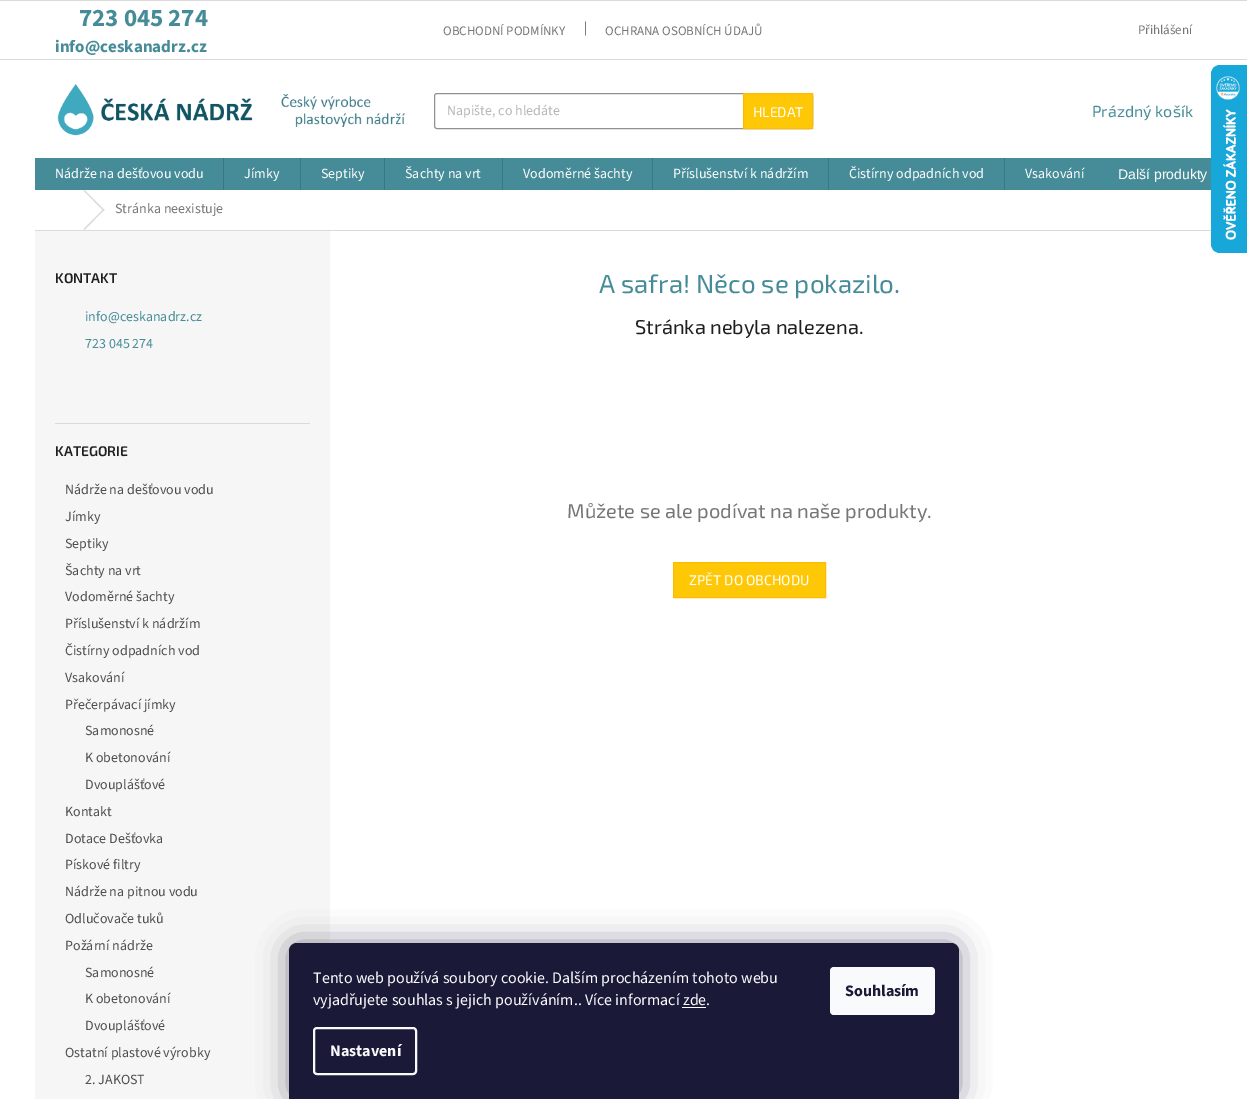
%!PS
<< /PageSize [1247 1099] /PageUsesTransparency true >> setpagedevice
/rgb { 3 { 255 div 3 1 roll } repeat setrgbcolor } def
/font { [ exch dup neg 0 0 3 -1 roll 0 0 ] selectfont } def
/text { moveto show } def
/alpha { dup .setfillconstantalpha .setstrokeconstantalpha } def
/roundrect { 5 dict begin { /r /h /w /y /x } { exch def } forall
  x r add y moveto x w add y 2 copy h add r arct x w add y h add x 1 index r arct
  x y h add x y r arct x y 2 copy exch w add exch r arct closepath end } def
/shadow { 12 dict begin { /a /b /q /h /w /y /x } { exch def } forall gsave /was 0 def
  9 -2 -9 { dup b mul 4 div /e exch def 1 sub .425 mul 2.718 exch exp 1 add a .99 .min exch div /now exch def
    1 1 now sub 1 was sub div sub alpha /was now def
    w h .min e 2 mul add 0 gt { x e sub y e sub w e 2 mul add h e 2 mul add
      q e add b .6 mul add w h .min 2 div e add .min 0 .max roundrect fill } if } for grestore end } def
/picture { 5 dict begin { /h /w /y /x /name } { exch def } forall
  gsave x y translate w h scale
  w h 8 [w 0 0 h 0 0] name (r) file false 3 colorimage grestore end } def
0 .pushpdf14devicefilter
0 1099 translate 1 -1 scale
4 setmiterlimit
255 255 255 rgb
0 0 1247 1099 rectfill
218 218 218 rgb
0 0 1247 1 rectfill
0 59 1247 1 rectfill
(img_01.rgb) 57 84 349 52 picture
145 145 145 rgb
434.5 93.5 378 35 2.5 roundrect stroke
255 200 7 rgb
743.5 93.5 moveto 69 0 rlineto 0 35 rlineto -69 0 rlineto closepath gsave fill grestore
255 187 0 rgb
stroke
70 140 152 rgb
35 158 1176 32 rectfill
59 119 129 rgb
223 158 1 32 rectfill
300 158 1 32 rectfill
384 158 1 32 rectfill
502 158 1 32 rectfill
652 158 1 32 rectfill
828 158 1 32 rectfill
1004 158 1 32 rectfill
218 218 218 rgb
35 230 1178 1 rectfill
83.5 190.5 moveto 1 -0.5 rlineto 20 20 rlineto -1 1 rlineto closepath fill
103.5 209 moveto 1 0.5 rlineto -20 20.5 rlineto -1 -1 rlineto closepath fill
246 246 246 rgb
35 231 295 868 rectfill
218 218 218 rgb
55 423 255 1 rectfill
255 200 7 rgb
673.5 562.5 moveto 152 0 rlineto 0 35 rlineto -152 0 rlineto closepath gsave fill grestore
255 187 0 rgb
stroke
(img_02.rgb) 1211 65 36 188 picture
27 25 57 rgb
289 943 670 156 8 15 0.5 shadow
26 25 55 rgb
297 943 moveto 654 0 rlineto 4.5 0 8 3.5 8 8 rcurveto 0 148 rlineto -670 0 rlineto 0 -148 rlineto 0 -4.5 3.5 -8 8 -8 rcurveto closepath fill
248 250 251 rgb
682 1007 24 1 rectfill
2 setlinewidth
314 1028 102 46 3 roundrect stroke
830 967 105 48 4 roundrect fill
/SourceSans3-Bold 25 font
70 140 152 rgb
(723 045 274) 79 26 text
/SourceSans3-Bold 17 font
(info@ceskanadrz.cz) 55 52 text
/SourceSans3-Regular 13 font
118 118 118 rgb
(OBCHODNÍ PODMÍNKY) 443 35 text
/SourceSans3-Regular 14 font
77 77 77 rgb
(|) 584 32 text
/SourceSans3-Regular 13 font
118 118 118 rgb
(OCHRANA OSOBNÍCH ÚDAJŮ) 605 35 text
(Přihlášení) 1138 34 text
/SourceSans3-Regular 14 font
182 182 182 rgb
(Napište, co hledáte) 447 115 text
/Exo2-Regular 14 font
255 255 255 rgb
(HLEDAT) 753 117 text
/Exo2-Regular 16 font
70 140 152 rgb
(Prázdný košík) 1092 117 text
/SourceSans3-Regular 14 font
255 255 255 rgb
(Nádrže na dešťovou vodu) 55 178 text
(Jímky) 244 178 text
(Septiky) 321 178 text
(Šachty na vrt) 405 178 text
(Vodoměrné šachty) 523 178 text
(Příslušenství k nádržím) 673 178 text
(Čistírny odpadních vod) 849 178 text
(Vsakování) 1025 178 text
/LiberationSans-Regular 14 font
(Další produkty) 1118 179 text
/SourceSans3-Regular 14 font
118 118 118 rgb
(Stránka neexistuje) 115 213 text
/Exo2-SemiBold 14 font
31 31 31 rgb
(KONTAKT) 55 283 text
/SourceSans3-Regular 14 font
70 140 152 rgb
(info@ceskanadrz.cz) 85 321 text
(723 045 274) 85 348 text
/Exo2-SemiBold 14 font
31 31 31 rgb
(KATEGORIE) 55 456 text
/SourceSans3-Regular 14 font
77 77 77 rgb
(Nádrže na dešťovou vodu) 65 494 text
(Jímky) 65 521 text
(Septiky) 65 548 text
(Šachty na vrt) 65 575 text
(Vodoměrné šachty) 65 601 text
(Příslušenství k nádržím) 65 628 text
(Čistírny odpadních vod) 65 655 text
(Vsakování) 65 682 text
(Přečerpávací jímky) 65 709 text
(Samonosné) 85 735 text
(K obetonování) 85 762 text
(Dvouplášťové) 85 789 text
(Kontakt) 65 816 text
(Dotace Dešťovka) 65 843 text
(Pískové filtry) 65 869 text
(Nádrže na pitnou vodu) 65 896 text
(Odlučovače tuků) 65 923 text
(Požární nádrže) 65 950 text
(Samonosné) 85 977 text
(K obetonování) 85 1003 text
(Dvouplášťové) 85 1030 text
(Ostatní plastové výrobky) 65 1057 text
(2. JAKOST) 85 1084 text
/Exo2-Regular 26 font
70 140 152 rgb
(A safra! Něco se pokazilo.) 599 293 text
/Exo2-Regular 20 font
31 31 31 rgb
(Stránka nebyla nalezena.) 635 334 text
118 118 118 rgb
(Můžete se ale podívat na naše produkty.) 567 518 text
/Exo2-Regular 14 font
255 255 255 rgb
(ZPĚT DO OBCHODU) 689 585 text
/SourceSans3-Regular 16 font
248 250 251 rgb
(Tento web používá soubory cookie. Dalším procházením tohoto webu) 313 983 text
(vyjadřujete souhlas s jejich používáním.. Více informací zde.) 313 1005 text
/SourceSans3-Bold 16 font
(Nastavení) 330 1056 text
26 25 55 rgb
(Souhlasím) 845 996 text
.poppdf14devicefilter showpage
